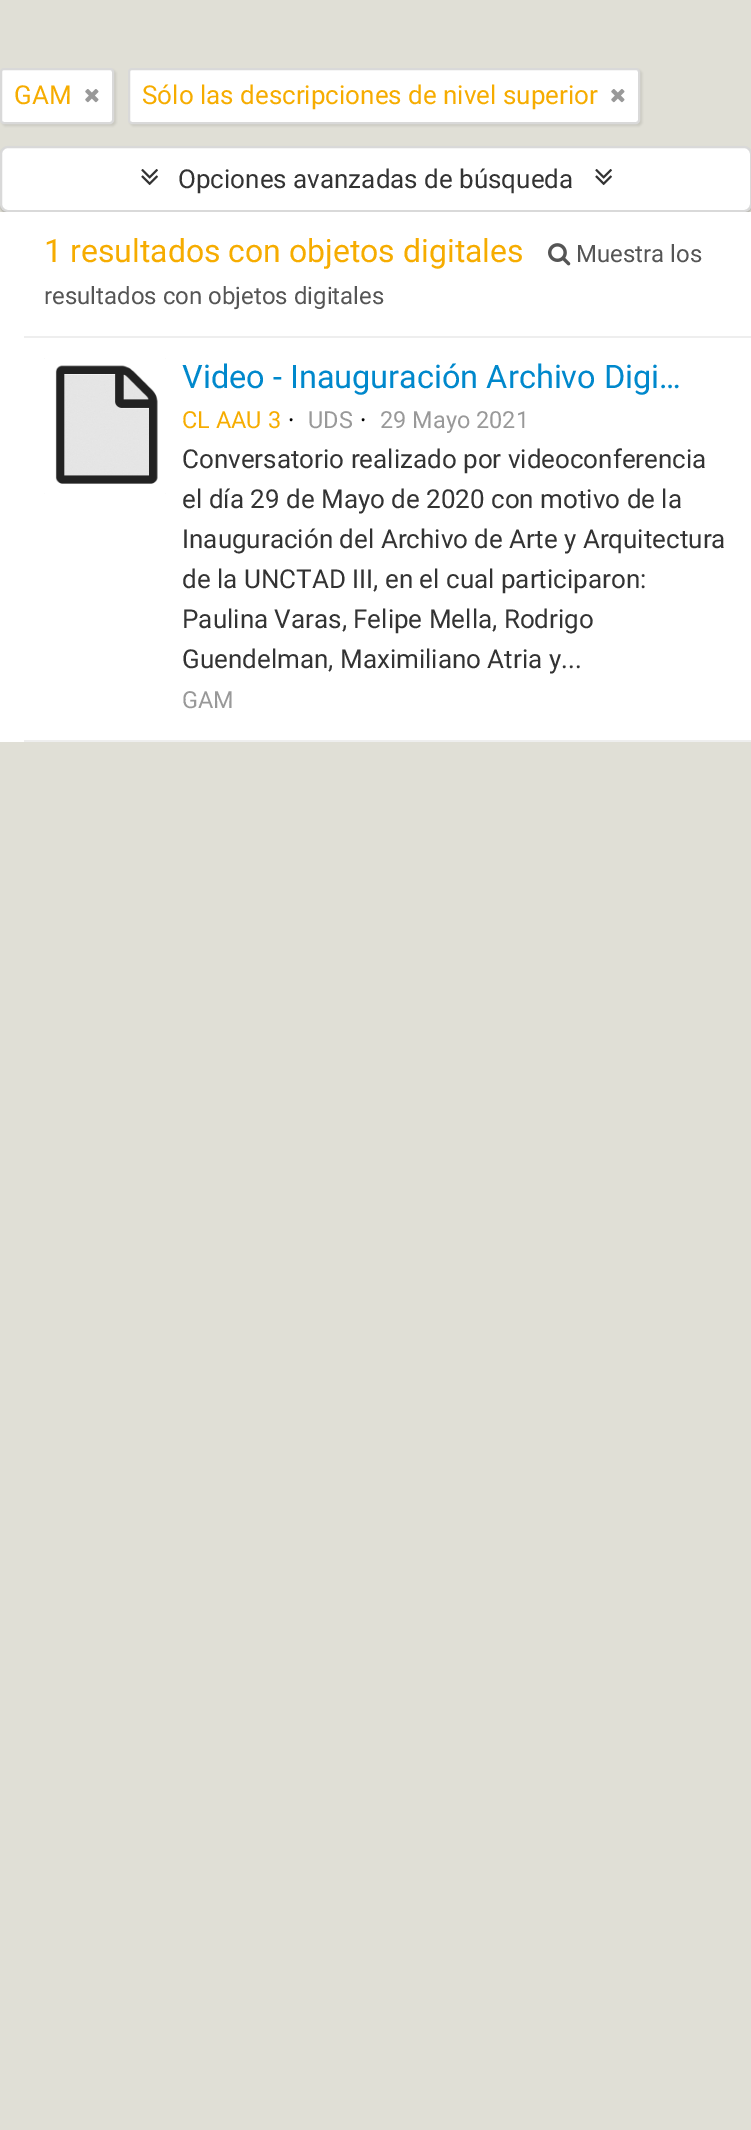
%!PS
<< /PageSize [751 2130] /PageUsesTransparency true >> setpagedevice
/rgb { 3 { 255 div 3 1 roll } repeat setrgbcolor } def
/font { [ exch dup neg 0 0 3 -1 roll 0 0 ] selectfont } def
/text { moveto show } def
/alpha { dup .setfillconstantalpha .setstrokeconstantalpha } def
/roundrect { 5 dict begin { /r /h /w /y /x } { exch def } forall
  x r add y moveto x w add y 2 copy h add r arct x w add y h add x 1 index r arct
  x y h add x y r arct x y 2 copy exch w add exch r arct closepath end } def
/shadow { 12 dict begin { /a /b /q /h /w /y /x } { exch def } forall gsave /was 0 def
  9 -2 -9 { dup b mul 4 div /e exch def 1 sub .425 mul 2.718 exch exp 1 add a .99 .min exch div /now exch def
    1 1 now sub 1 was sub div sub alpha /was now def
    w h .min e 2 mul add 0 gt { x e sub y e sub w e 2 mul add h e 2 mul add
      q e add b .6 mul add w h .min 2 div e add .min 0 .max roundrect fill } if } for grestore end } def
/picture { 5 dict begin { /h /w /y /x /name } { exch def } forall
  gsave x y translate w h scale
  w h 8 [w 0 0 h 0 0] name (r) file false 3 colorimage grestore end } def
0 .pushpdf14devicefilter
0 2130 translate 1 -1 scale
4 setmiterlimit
224 223 214 rgb
0 0 751 2130 rectfill
0 0 0 rgb
2 70 114 56 4 1 0.1 shadow
255 255 255 rgb
1 69 112 54 3 roundrect gsave fill grestore
217 217 217 rgb
2 setlinewidth
stroke
(img_01.rgb) 85 89 14 14 picture
0 0 0 rgb
130 70 512 56 4 1 0.1 shadow
255 255 255 rgb
129 69 510 54 3 roundrect gsave fill grestore
217 217 217 rgb
stroke
(img_01.rgb) 611 89 14 14 picture
0 0 0 rgb
0 148 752 66 8 1 0.2 shadow
255 255 255 rgb
1 147 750 64 7 roundrect gsave fill grestore
217 217 217 rgb
stroke
(img_02.rgb) 141 169 17 17 picture
(img_02.rgb) 595 169 17 17 picture
255 255 255 rgb
0 212 751 530 rectfill
238 238 238 rgb
24 336 727 2 rectfill
(img_03.rgb) 548 243 23 23 picture
24 740 727 2 rectfill
(img_04.rgb) 44 358 122 136 picture
/Roboto-Regular 26 font
246 172 0 rgb
(GAM) 14 104 text
(Sólo las descripciones de nivel superior) 142 104 text
51 51 51 rgb
(Opciones avanzadas de búsqueda) 178 188 text
/Roboto-Regular 32 font
246 172 0 rgb
(1 resultados con objetos digitales) 44 262 text
/Roboto-Regular 24 font
85 85 85 rgb
(Muestra los) 576 262 text
(resultados con objetos digitales) 44 304 text
/Roboto-Regular 32.5 font
0 136 204 rgb
(Video - Inauguración Archivo Digi…) 182 388 text
/Roboto-Regular 23.5 font
246 172 0 rgb
(CL AAU 3) 182 428 text
/OpenSans-Regular 23.5 font
0 0 0 rgb
(·) 288 428 text
/Roboto-Regular 23.5 font
153 153 153 rgb
(UDS) 308 428 text
/OpenSans-Regular 23.5 font
0 0 0 rgb
(·) 360 428 text
/Roboto-Regular 23.5 font
153 153 153 rgb
(29 Mayo 2021) 380 428 text
/Roboto-Regular 26 font
51 51 51 rgb
(Conversatorio realizado por videoconferencia) 182 468 text
(el día 29 de Mayo de 2020 con motivo de la) 182 508 text
(Inauguración del Archivo de Arte y Arquitectura) 182 548 text
(de la UNCTAD III, en el cual participaron:) 182 588 text
(Paulina Varas, Felipe Mella, Rodrigo) 182 628 text
(Guendelman, Maximiliano Atria y...) 182 668 text
/Roboto-Regular 23.5 font
153 153 153 rgb
(GAM) 182 708 text
.poppdf14devicefilter showpage
